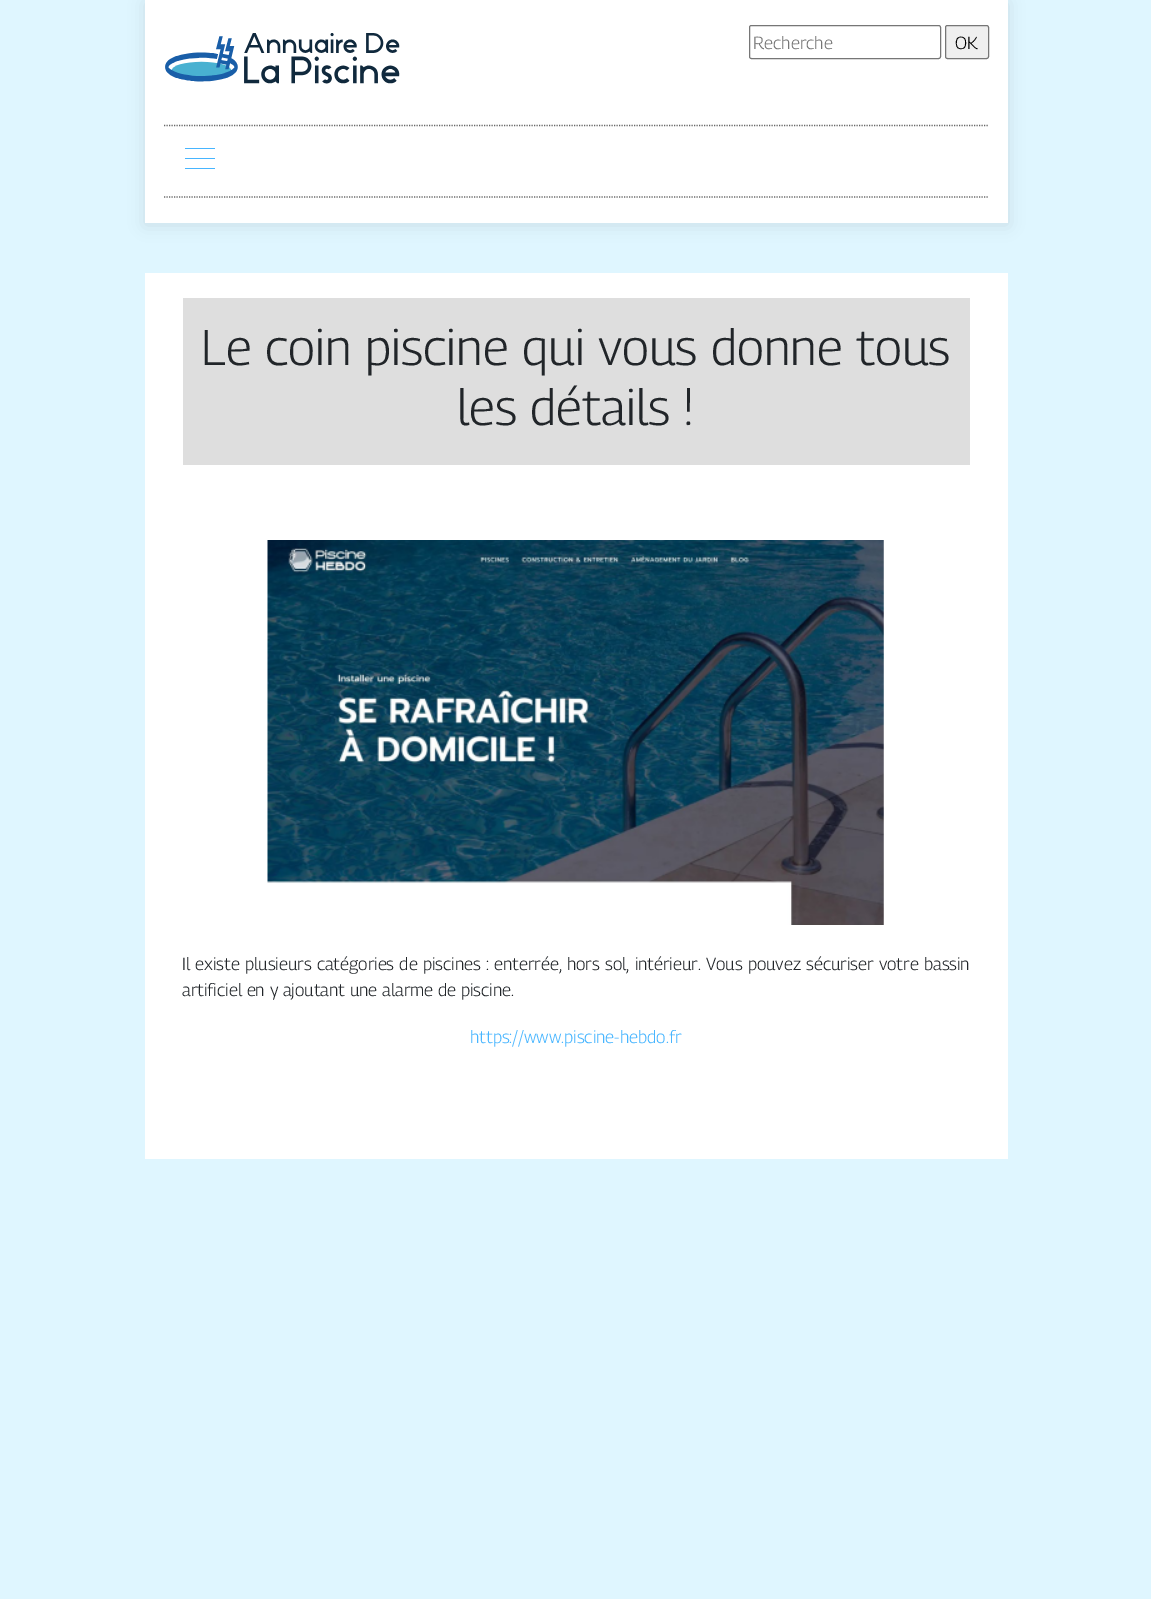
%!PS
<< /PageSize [1151 1599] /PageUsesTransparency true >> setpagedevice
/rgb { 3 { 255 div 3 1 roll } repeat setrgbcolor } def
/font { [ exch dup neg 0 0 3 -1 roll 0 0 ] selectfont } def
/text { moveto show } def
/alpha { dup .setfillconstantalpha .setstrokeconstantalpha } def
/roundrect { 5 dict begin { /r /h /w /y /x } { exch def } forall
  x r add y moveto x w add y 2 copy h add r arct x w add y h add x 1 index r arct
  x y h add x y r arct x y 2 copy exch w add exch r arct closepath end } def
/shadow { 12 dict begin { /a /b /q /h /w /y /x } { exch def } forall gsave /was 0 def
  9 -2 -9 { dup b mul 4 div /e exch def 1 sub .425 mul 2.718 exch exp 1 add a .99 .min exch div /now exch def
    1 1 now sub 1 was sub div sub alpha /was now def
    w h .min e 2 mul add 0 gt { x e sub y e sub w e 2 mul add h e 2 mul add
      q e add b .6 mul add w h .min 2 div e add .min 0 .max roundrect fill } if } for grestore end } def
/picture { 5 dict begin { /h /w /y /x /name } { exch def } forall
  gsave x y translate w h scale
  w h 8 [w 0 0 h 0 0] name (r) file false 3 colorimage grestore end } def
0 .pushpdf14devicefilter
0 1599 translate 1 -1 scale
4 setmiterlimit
223 246 255 rgb
0 0 1151 1599 rectfill
0 0 0 rgb
145 3 863 222 0 8 0.1 shadow
255 255 255 rgb
145 0 863 223 rectfill
(img_01.rgb) 165 33 235 51 picture
118 118 118 rgb
749.5 25.5 191 33 2 roundrect stroke
239 239 239 rgb
945.5 25.5 43 33 2 roundrect gsave fill grestore
118 118 118 rgb
stroke
102 102 102 rgb
1.2 setlinewidth
[1.25 1.25] 0 setdash
164 125.5 moveto 825 0 rlineto stroke
164 197 moveto 825 0 rlineto stroke
71 181 255 rgb
185 148 30 1 rectfill
185 158 30 1 rectfill
185 168 30 1 rectfill
255 255 255 rgb
145 273 863 886 rectfill
222 222 222 rgb
183 298 787 167 rectfill
(img_02.rgb) 267 540 617 385 picture
/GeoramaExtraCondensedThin-Thin 17.5 font
117 117 117 rgb
(Recherche) 753 49 text
0 0 0 rgb
(OK) 955 49 text
/GeoramaExtraCondensedThin-Thin 50 font
33 37 41 rgb
(Le coin piscine qui vous donne tous) 201 365 text
(les détails !) 457 425 text
/GeoramaExtraCondensedThin-Thin 17.5 font
182 970 moveto 0.5 0 32 (Il existe plusieurs catégories de piscines : enterrée, hors sol, intérieur. Vous pouvez sécuriser votre bassin) widthshow
(artificiel en y ajoutant une alarme de piscine.) 182 996 text
71 181 255 rgb
(https://www.piscine-hebdo.fr) 470 1043 text
.poppdf14devicefilter showpage
